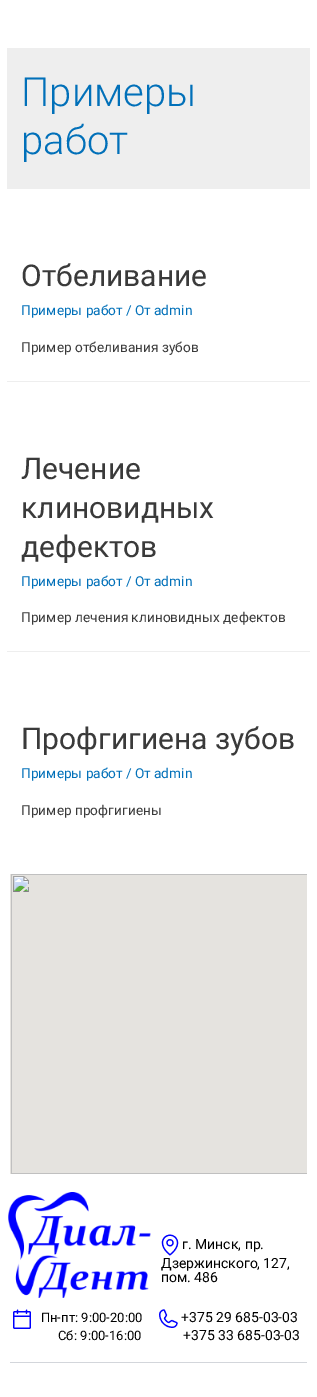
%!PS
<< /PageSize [317 1397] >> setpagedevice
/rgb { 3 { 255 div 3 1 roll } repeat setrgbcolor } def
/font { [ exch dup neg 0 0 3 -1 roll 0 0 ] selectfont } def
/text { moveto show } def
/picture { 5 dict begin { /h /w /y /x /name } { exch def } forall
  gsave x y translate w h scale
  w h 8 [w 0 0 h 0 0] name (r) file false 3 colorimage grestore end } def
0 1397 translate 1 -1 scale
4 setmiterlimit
255 255 255 rgb
0 0 317 1397 rectfill
238 238 238 rgb
7 48 303 141 rectfill
7 381 303 1 rectfill
7 651 303 1 rectfill
(img_01.rgb) 10 874 297 300 picture
(img_02.rgb) 8 1192 143 106 picture
(img_03.rgb) 161 1234 18 22 picture
(img_04.rgb) 13 1309 18 20 picture
(img_05.rgb) 159 1309 19 19 picture
211 214 219 rgb
10 1362 297 1 rectfill
/Roboto-Light 40 font
1 112 185 rgb
(Примеры) 21 106 text
(работ) 21 154 text
/Roboto-Regular 30 font
58 58 58 rgb
(Отбеливание) 21 286 text
/Roboto-Regular 13.7 font
1 112 185 rgb
(Примеры работ) 21 315 text
/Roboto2-Regular 13.7 font
(/) 126 315 text
/Roboto-Regular 13.7 font
(От) 135 315 text
/Roboto2-Regular 13.7 font
(admin) 154 315 text
/Roboto-Regular 13.7 font
58 58 58 rgb
(Пример отбеливания зубов) 21 352 text
/Roboto-Regular 30 font
(Лечение) 21 479 text
(клиновидных) 21 518 text
(дефектов) 21 557 text
/Roboto-Regular 13.7 font
1 112 185 rgb
(Примеры работ) 21 586 text
/Roboto2-Regular 13.7 font
(/) 126 586 text
/Roboto-Regular 13.7 font
(От) 135 586 text
/Roboto2-Regular 13.7 font
(admin) 154 586 text
/Roboto-Regular 13.7 font
58 58 58 rgb
(Пример лечения клиновидных дефектов) 21 622 text
/Roboto-Regular 30 font
(Профгигиена зубов) 21 749 text
/Roboto-Regular 13.7 font
1 112 185 rgb
(Примеры работ) 21 778 text
/Roboto2-Regular 13.7 font
(/) 126 778 text
/Roboto-Regular 13.7 font
(От) 135 778 text
/Roboto2-Regular 13.7 font
(admin) 154 778 text
/Roboto-Regular 13.7 font
58 58 58 rgb
(Пример профгигиены) 21 815 text
/Roboto-Regular 14 font
0 0 0 rgb
(г) 182 1249 text
/Roboto2-Regular 14 font
(.) 188 1249 text
/Roboto-Regular 14 font
(Минск) 195 1249 text
/Roboto2-Regular 14 font
(,) 238 1249 text
/Roboto-Regular 14 font
(пр) 245 1249 text
/Roboto2-Regular 14 font
(.) 260 1249 text
/Roboto-Regular 14 font
(Дзержинского) 161 1268 text
/Roboto2-Regular 14 font
(, 127,) 257 1268 text
/Roboto-Regular 14 font
(пом) 161 1282 text
/Roboto2-Regular 14 font
(. 486) 187 1282 text
/Roboto-Regular 13 font
(Пн) 41 1322 text
/Roboto2-Regular 13 font
(-) 57 1322 text
/Roboto-Regular 13 font
(пт) 61 1322 text
/Roboto2-Regular 13 font
(: 9:00-20:00) 75 1322 text
/Roboto-Regular 13 font
(Сб) 58 1340 text
/Roboto2-Regular 13 font
(: 9:00-16:00) 74 1340 text
/Roboto2-Regular 14 font
(+375 29 685-03-03) 181 1322 text
(+375 33 685-03-03) 183 1340 text
showpage
